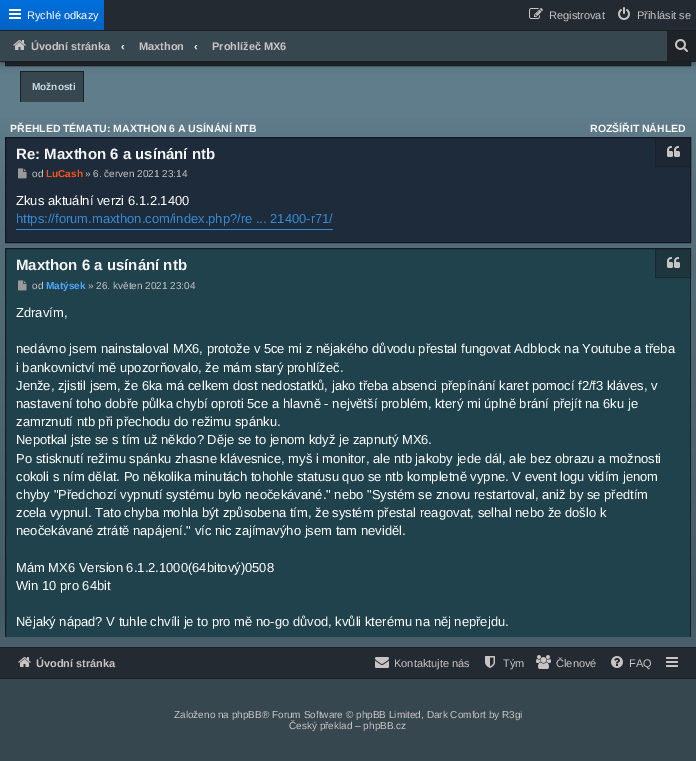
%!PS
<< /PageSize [696 761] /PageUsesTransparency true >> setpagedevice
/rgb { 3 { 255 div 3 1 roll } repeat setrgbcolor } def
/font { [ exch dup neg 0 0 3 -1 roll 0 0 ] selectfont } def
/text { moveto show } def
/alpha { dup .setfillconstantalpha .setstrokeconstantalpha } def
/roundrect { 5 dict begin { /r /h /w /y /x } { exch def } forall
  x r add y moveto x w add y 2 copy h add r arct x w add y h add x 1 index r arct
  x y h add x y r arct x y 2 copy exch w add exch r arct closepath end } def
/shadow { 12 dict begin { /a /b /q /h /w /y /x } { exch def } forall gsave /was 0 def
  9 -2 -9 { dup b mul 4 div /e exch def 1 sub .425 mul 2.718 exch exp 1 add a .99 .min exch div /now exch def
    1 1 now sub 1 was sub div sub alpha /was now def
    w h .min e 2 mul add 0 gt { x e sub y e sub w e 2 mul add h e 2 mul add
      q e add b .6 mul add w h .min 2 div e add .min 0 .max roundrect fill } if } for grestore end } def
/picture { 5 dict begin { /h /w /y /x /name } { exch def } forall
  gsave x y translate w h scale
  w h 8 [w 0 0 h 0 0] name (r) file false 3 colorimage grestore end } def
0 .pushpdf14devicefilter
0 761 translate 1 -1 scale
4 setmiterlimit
255 255 255 rgb
0 0 696 761 rectfill
gsave 0 62 moveto 696 0 rlineto 0 585 rlineto -696 0 rlineto closepath clip newpath
<< /ShadingType 2 /ColorSpace /DeviceRGB /Coords [348 0 348 761] /Extend [true true] /Function << /FunctionType 3 /Domain [0 1] /Functions [<< /FunctionType 2 /Domain [0 1] /C0 [0.376 0.49 0.545] /C1 [0.376 0.49 0.545] /N 1 >> << /FunctionType 2 /Domain [0 1] /C0 [0.376 0.49 0.545] /C1 [0.341 0.439 0.482] /N 1 >> << /FunctionType 2 /Domain [0 1] /C0 [0.341 0.439 0.482] /C1 [0.271 0.353 0.392] /N 1 >> << /FunctionType 2 /Domain [0 1] /C0 [0.271 0.353 0.392] /C1 [0.341 0.439 0.482] /N 1 >>] /Bounds [0.15 0.25 0.8] /Encode [0 1 0 1 0 1 0 1] >> >> shfill grestore
35 42 49 rgb
6 62 684 3 rectfill
28 32 35 rgb
5.5 14.5 685 51 rectstroke
55 71 79 rgb
21 72 62 30 rectfill
28 32 35 rgb
20 71 64 1 rectfill
83 71 1 31 rectfill
20 71 1 31 rectfill
0 0 0 rgb
0 0 696 62 0 5 0.5 shadow
55 71 79 rgb
0 31 667 30 rectfill
28 32 35 rgb
0 61 696 1 rectfill
35 42 49 rgb
104 0 592 30 rectfill
28 32 35 rgb
0 30 696 1 rectfill
gsave 0 0 moveto 104 0 rlineto 0 30 rlineto -104 0 rlineto closepath clip newpath
<< /ShadingType 2 /ColorSpace /DeviceRGB /Coords [52 0 52 30] /Extend [true true] /Function << /FunctionType 2 /Domain [0 1] /C0 [0 0.435 0.863] /C1 [0 0.388 0.773] /N 1 >> >> shfill grestore
(img_01.rgb) 9 9 12 10 picture
(img_02.rgb) 529 8 14 11 picture
(img_03.rgb) 618 7 12 13 picture
(img_04.rgb) 13 40 13 10 picture
30 35 39 rgb
667 31 29 30 rectfill
(img_05.rgb) 675 39 13 13 picture
29 43 59 rgb
5.5 137.5 moveto 685 0 rlineto 0 105 rlineto -685 0 rlineto closepath gsave fill grestore
16 24 33 rgb
stroke
0.4 alpha
29 34 38 rgb
655 137 36 30 rectfill
21 24 27 rgb
655.5 137.5 35 29 rectstroke
1 alpha
(img_06.rgb) 667 146 13 11 picture
(img_07.rgb) 18 168 9 11 picture
54 138 210 rgb
16 229 317 1 rectfill
31 66 76 rgb
6 249 684 388 rectfill
55 71 79 rgb
0 679 696 82 rectfill
/LiberationSans-Regular 11 font
255 255 255 rgb
(Rychlé odkazy) 27 19 text
201 196 196 rgb
(Registrovat) 549 19 text
(Přihlásit se) 637 19 text
/LiberationSans-Bold 11 font
(Úvodní stránka) 31 50 text
255 255 255 rgb
(‹) 121 50 text
201 196 196 rgb
(Maxthon) 139 50 text
255 255 255 rgb
(‹) 194 50 text
201 196 196 rgb
(Prohlížeč MX6) 212 50 text
/LiberationSans-Bold 10 font
206 219 231 rgb
(Možnosti) 32 90 text
/LiberationSans-Bold 10.5 font
245 245 245 rgb
(PŘEHLED TÉMATU: MAXTHON 6 A USÍNÁNÍ NTB) 10 132 text
(ROZŠÍŘIT NÁHLED) 590 132 text
/LiberationSans-Bold 15 font
(Re: Maxthon 6 a usínání ntb) 16 159 text
/LiberationSans-Regular 10 font
201 196 196 rgb
(od) 32 177 text
/LiberationSans-Bold 10 font
255 84 22 rgb
(LuCash) 46 177 text
/LiberationSans-Regular 10 font
201 196 196 rgb
(» 6. červen 2021 23:14) 85 177 text
/LiberationSans-Regular 13 font
255 255 255 rgb
(Zkus aktuální verzi 6.1.2.1400) 16 205 text
54 138 210 rgb
(https://forum.maxthon.com/index.php?/re ... 21400-r71/) 16 223 text
/LiberationSans-Regular 10 font
201 196 196 rgb
(Založeno na phpBB® Forum Software © phpBB Limited, Dark Comfort by R3gi) 174 718 text
gsave
5 137 686 500 rectclip
21 29 35 rgb
5.5 248.5 685 468 rectstroke
grestore
35 42 49 rgb
0 648 696 30 rectfill
(img_15.rgb) 666 657 12 10 picture
/LiberationSans-Bold 11 font
201 196 196 rgb
(Úvodní stránka) 36 667 text
(img_10.rgb) 18 657 13 10 picture
/LiberationSans-Regular 11 font
(Kontaktujte nás) 394 667 text
(img_11.rgb) 375 657 14 11 picture
(Tým) 503 667 text
(img_12.rgb) 485 656 10 12 picture
(Členové) 556 667 text
(img_13.rgb) 536 655 15 14 picture
(FAQ) 629 667 text
(img_14.rgb) 611 656 12 12 picture
28 32 35 rgb
0 678 696 1 rectfill
0 647 696 1 rectfill
0.4 alpha
29 34 38 rgb
655 248 36 30 rectfill
21 24 27 rgb
655.5 248.5 35 29 rectstroke
1 alpha
(img_08.rgb) 667 257 13 11 picture
/LiberationSans-Regular 13 font
255 255 255 rgb
(Nějaký nápad? V tuhle chvíli je to pro mě no-go důvod, kvůli kterému na něj nepřejdu.) 16 626 text
(Win 10 pro 64bit) 16 590 text
(Mám MX6 Version 6.1.2.1000\(64bitový\)0508) 16 572 text
(neočekávané ztrátě napájení." víc nic zajímavýho jsem tam neviděl.) 16 535 text
(zcela vypnul. Tato chyba mohla být způsobena tím, že systém přestal reagovat, selhal nebo že došlo k) 16 517 text
(chyby "Předchozí vypnutí systému bylo neočekávané." nebo "Systém se znovu restartoval, aniž by se předtím) 16 499 text
(cokoli s ním dělat. Po několika minutách tohohle statusu quo se ntb kompletně vypne. V event logu vidím jenom) 16 481 text
(Po stisknutí režimu spánku zhasne klávesnice, myš i monitor, ale ntb jakoby jede dál, ale bez obrazu a možnosti) 16 463 text
(Nepotkal jste se s tím už někdo? Děje se to jenom když je zapnutý MX6.) 16 444 text
(zamrznutí ntb při přechodu do režimu spánku.) 16 426 text
(nastavení toho dobře půlka chybí oproti 5ce a hlavně - největší problém, který mi úplně brání přejít na 6ku je) 16 408 text
(Jenže, zjistil jsem, že 6ka má celkem dost nedostatků, jako třeba absenci přepínání karet pomocí f2/f3 kláves, v) 16 390 text
(i bankovnictví mě upozorňovalo, že mám starý prohlížeč.) 16 372 text
(nedávno jsem nainstaloval MX6, protože v 5ce mi z nějakého důvodu přestal fungovat Adblock na Youtube a třeba) 16 353 text
(Zdravím,) 16 317 text
/LiberationSans-Regular 10 font
201 196 196 rgb
(» 26. květen 2021 23:04) 88 289 text
/LiberationSans-Bold 10 font
81 168 255 rgb
(Matýsek) 46 289 text
/LiberationSans-Regular 10 font
201 196 196 rgb
(od) 32 289 text
(img_09.rgb) 18 280 9 11 picture
/LiberationSans-Bold 15 font
245 245 245 rgb
(Maxthon 6 a usínání ntb) 16 270 text
/LiberationSans-Regular 10 font
201 196 196 rgb
(Český překlad – phpBB.cz) 289 729 text
.poppdf14devicefilter showpage
